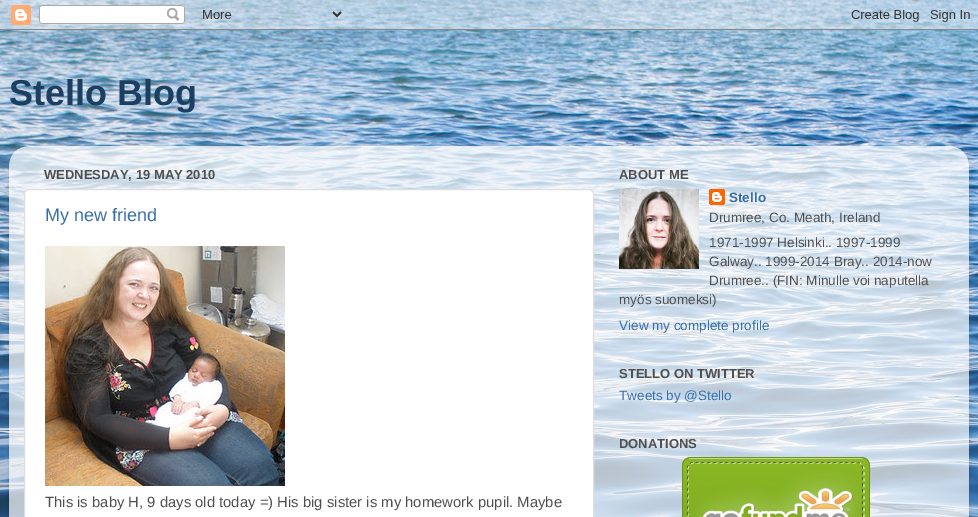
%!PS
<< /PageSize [978 517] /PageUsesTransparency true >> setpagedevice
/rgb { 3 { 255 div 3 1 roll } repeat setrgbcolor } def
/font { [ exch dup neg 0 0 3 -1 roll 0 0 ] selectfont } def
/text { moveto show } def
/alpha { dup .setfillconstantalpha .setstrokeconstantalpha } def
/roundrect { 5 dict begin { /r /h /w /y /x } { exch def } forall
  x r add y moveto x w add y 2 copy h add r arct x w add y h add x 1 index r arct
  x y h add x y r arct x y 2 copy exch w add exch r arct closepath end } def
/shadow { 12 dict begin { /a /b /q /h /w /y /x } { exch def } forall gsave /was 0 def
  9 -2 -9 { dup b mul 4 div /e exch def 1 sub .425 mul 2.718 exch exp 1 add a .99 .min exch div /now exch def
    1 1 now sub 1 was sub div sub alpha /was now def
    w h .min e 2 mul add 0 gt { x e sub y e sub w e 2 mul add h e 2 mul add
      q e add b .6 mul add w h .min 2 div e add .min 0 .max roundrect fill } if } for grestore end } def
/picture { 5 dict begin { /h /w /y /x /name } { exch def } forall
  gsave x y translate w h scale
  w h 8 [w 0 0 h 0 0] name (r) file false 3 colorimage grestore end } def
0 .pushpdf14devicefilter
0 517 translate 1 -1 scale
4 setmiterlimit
255 255 255 rgb
0 0 978 517 rectfill
(img_01.rgb) 0 0 978 517 picture
(img_02.rgb) 0 0 978 30 picture
gsave
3 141 moveto 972 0 rlineto 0 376 rlineto -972 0 rlineto closepath 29 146 moveto 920 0 rlineto 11 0 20 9 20 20 rcurveto 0 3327 rlineto -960 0 rlineto 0 -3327 rlineto 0 -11 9 -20 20 -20 rcurveto closepath eoclip newpath
0 0 0 rgb
9 147 960 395 20 1.5 0.15 shadow
grestore
(img_03.rgb) 9 146 960 371 picture
24.5 189.5 569 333 4.5 roundrect gsave fill grestore
223 223 223 rgb
stroke
(img_04.rgb) 45 246 240 240 picture
(img_05.rgb) 619 189 80 80 picture
(img_06.rgb) 709 189 16 16 picture
(img_07.rgb) 682 457 188 60 picture
/LiberationSans-Bold 36 font
27 62 97 rgb
(Stello Blog) 9 105 text
/LiberationSans-Bold 13 font
79 79 79 rgb
(WEDNESDAY, 19 MAY 2010) 44 179 text
/LiberationSans-Regular 18 font
56 111 169 rgb
(My new friend) 45 221 text
/LiberationSans-Regular 14.85 font
79 79 79 rgb
(This is baby H, 9 days old today =\) His big sister is my homework pupil. Maybe) 45 507 text
/LiberationSans-Bold 13 font
(ABOUT ME) 619 179 text
/LiberationSans-Bold 13.5 font
56 111 169 rgb
(Stello) 729 202 text
/LiberationSans-Regular 13.5 font
79 79 79 rgb
(Drumree, Co. Meath, Ireland) 709 222 text
(1971-1997 Helsinki.. 1997-1999) 709 247 text
(Galway.. 1999-2014 Bray.. 2014-now) 709 266 text
(Drumree.. \(FIN: Minulle voi naputella) 709 285 text
(myös suomeksi\)) 619 304 text
56 111 169 rgb
(View my complete profile) 619 330 text
/LiberationSans-Bold 13 font
79 79 79 rgb
(STELLO ON TWITTER) 619 378 text
/LiberationSans-Regular 13.5 font
56 111 169 rgb
(Tweets by @Stello) 619 400 text
/LiberationSans-Bold 13 font
79 79 79 rgb
(DONATIONS) 619 448 text
.poppdf14devicefilter showpage
